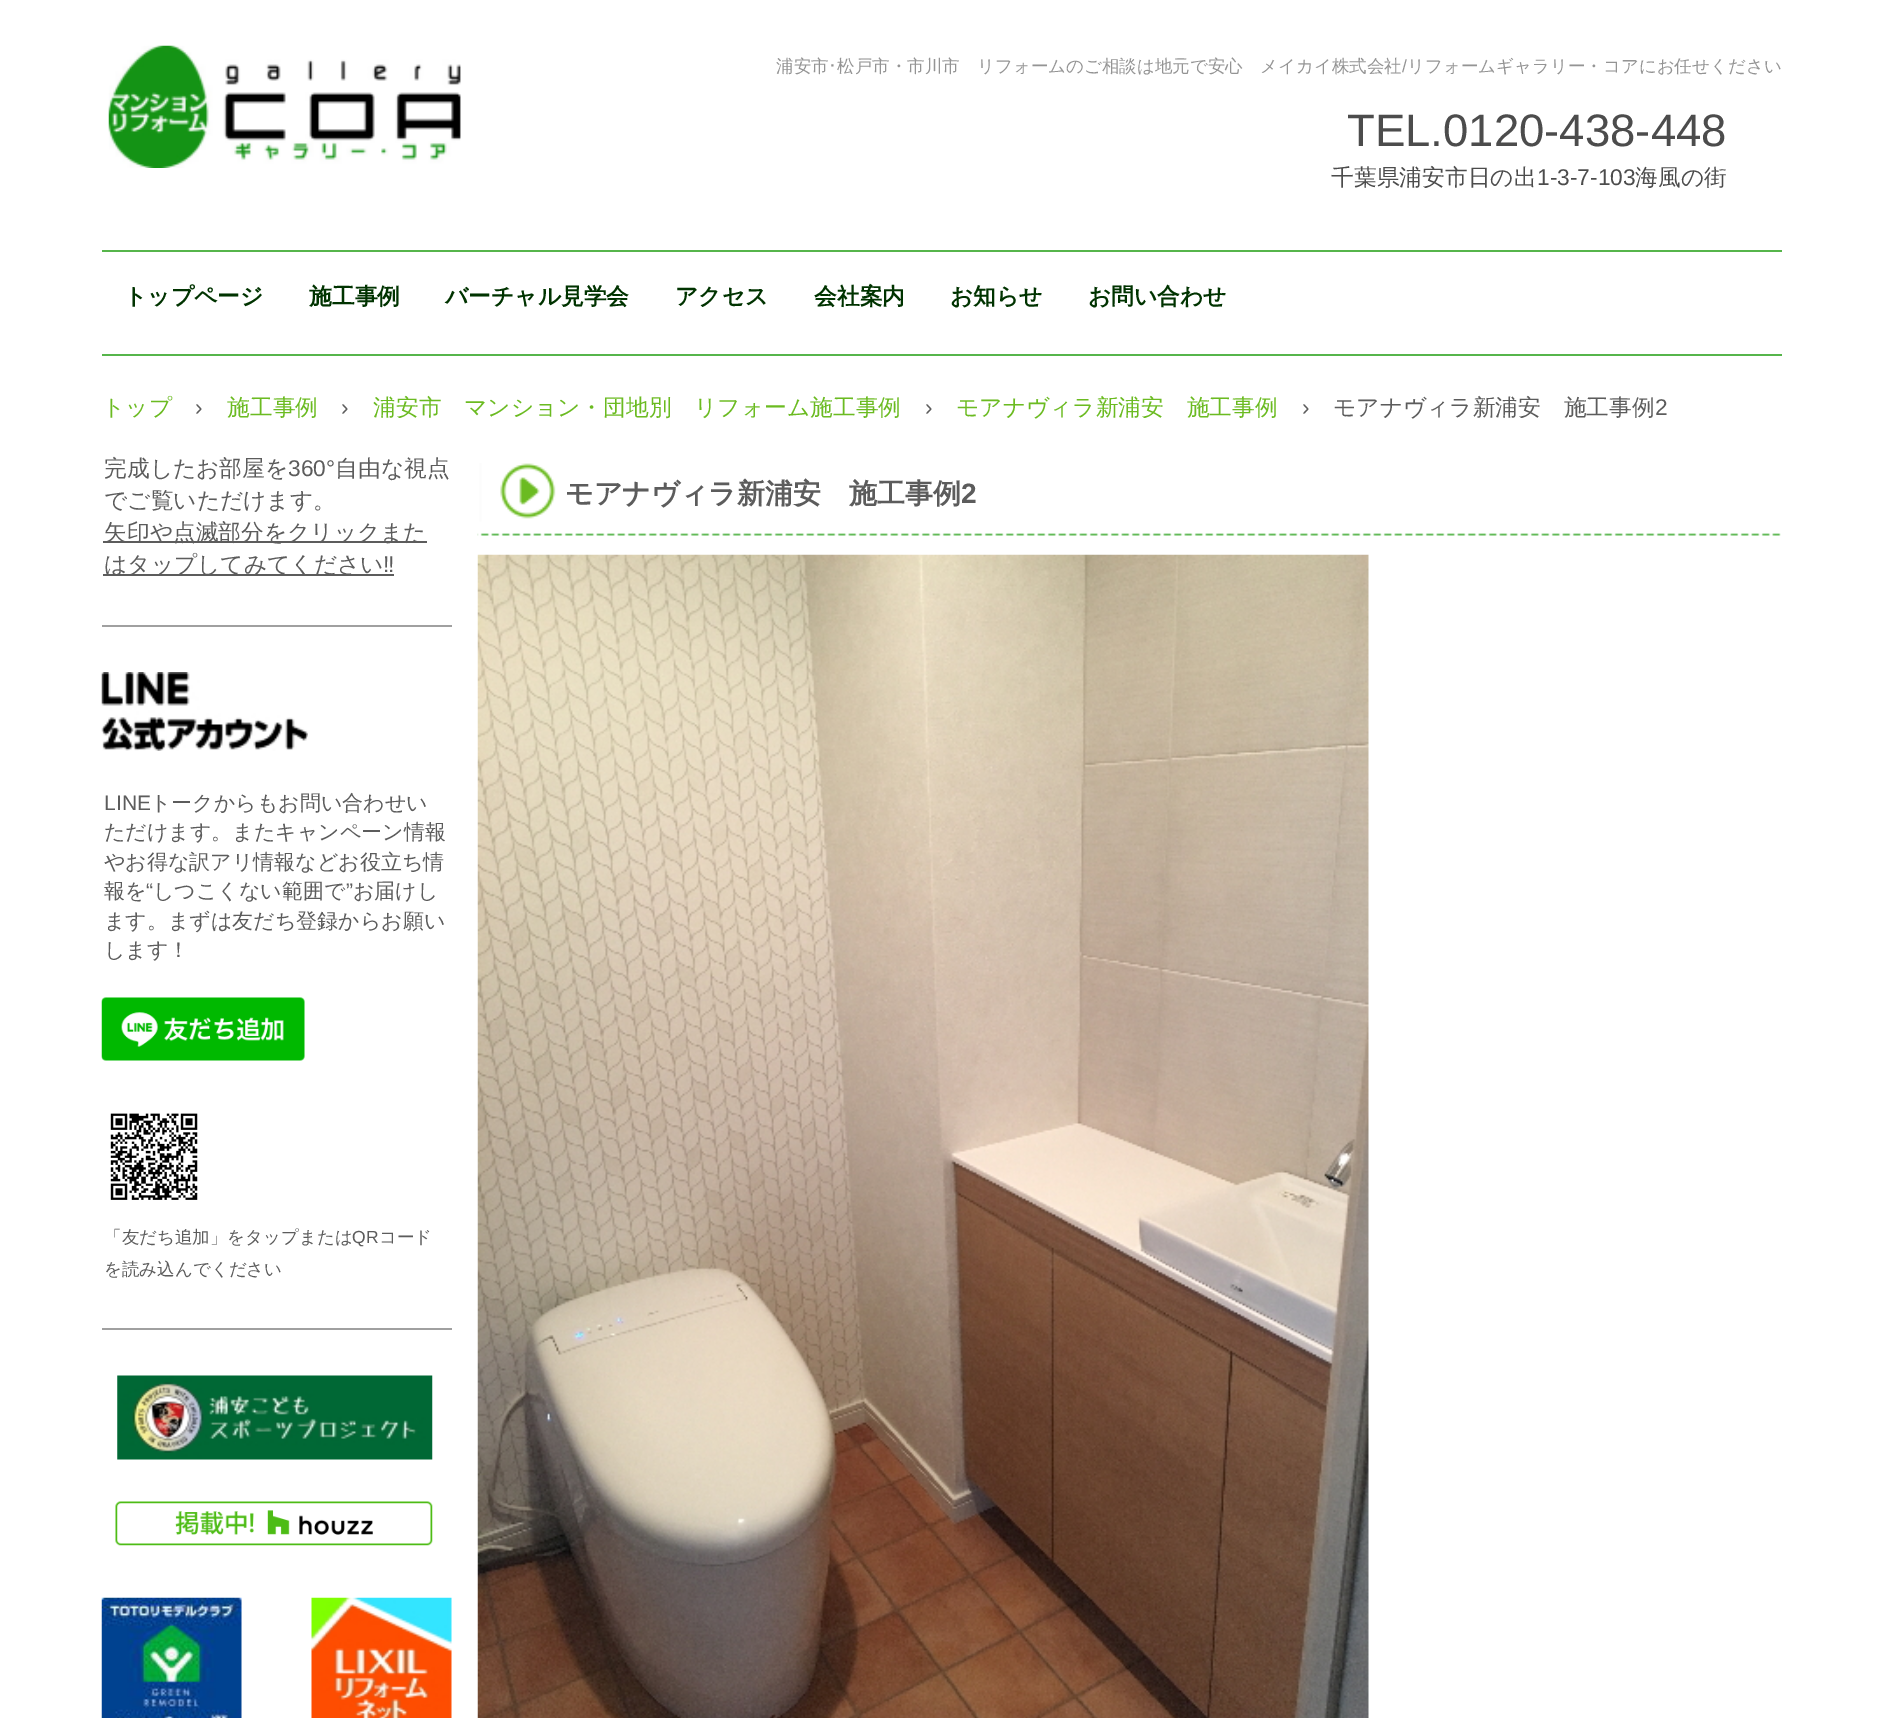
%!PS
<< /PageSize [1882 1718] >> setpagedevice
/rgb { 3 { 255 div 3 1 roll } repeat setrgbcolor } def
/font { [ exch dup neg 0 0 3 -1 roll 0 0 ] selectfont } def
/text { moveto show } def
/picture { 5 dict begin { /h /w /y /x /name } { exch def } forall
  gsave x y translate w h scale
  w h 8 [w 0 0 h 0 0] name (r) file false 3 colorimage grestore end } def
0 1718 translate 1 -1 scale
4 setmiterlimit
255 255 255 rgb
0 0 1882 1718 rectfill
(img_01.rgb) 108 45 353 123 picture
86 181 75 rgb
102 250 1680 2 rectfill
102 354 1680 2 rectfill
92 92 92 rgb
103 541 324 2 rectfill
103 574 291 2 rectfill
160 160 160 rgb
102 625 350 2 rectfill
(img_02.rgb) 101 672 207 79 picture
(img_03.rgb) 101 997 204 64 picture
(img_04.rgb) 110 1113 88 87 picture
102 1328 350 2 rectfill
(img_05.rgb) 117 1375 316 85 picture
(img_06.rgb) 115 1501 318 45 picture
(img_07.rgb) 101 1597 141 121 picture
(img_08.rgb) 311 1597 141 121 picture
(img_09.rgb) 477 463 1304 73 picture
(img_10.rgb) 477 554 892 1164 picture
/WenQuanYiZenHei-Medium 17.5 font
148 148 148 rgb
(浦安市) 776 72 text
/IPAPGothic-Regular 17.5 font
(･) 828 72 text
/WenQuanYiZenHei-Medium 17.5 font
(松戸市・市川市　リフォームのご相談は地元で安心　メイカイ株式会社) 837 72 text
/LiberationSans-Regular 17.5 font
(/) 1402 72 text
/WenQuanYiZenHei-Medium 17.5 font
(リフォームギャラリー・コアにお任せください) 1407 72 text
/LiberationSans-Regular 45.5 font
76 76 76 rgb
(TEL.0120-438-448) 1347 146 text
/WenQuanYiZenHei-Medium 22.75 font
(千葉県浦安市日の出) 1331 185 text
/LiberationSans-Regular 22.75 font
(1-3-7-103) 1537 185 text
/WenQuanYiZenHei-Medium 22.75 font
(海風の街) 1635 185 text
/WenQuanYiZenHei-Bold 22.75 font
0 51 0 rgb
(トップページ) 124 304 text
(施工事例) 309 304 text
(バーチャル見学会) 445 304 text
(アクセス) 675 304 text
(会社案内) 814 304 text
(お知らせ) 950 304 text
(お問い合わせ) 1088 304 text
/WenQuanYiZenHei-Medium 22.75 font
107 187 33 rgb
(トップ) 102 415 text
/LiberationSans-Regular 22.75 font
92 92 92 rgb
(›) 195 415 text
/WenQuanYiZenHei-Medium 22.75 font
107 187 33 rgb
(施工事例) 227 415 text
/LiberationSans-Regular 22.75 font
92 92 92 rgb
(›) 341 415 text
/WenQuanYiZenHei-Medium 22.75 font
107 187 33 rgb
(浦安市　マンション・団地別　リフォーム施工事例) 373 415 text
/LiberationSans-Regular 22.75 font
92 92 92 rgb
(›) 925 415 text
/WenQuanYiZenHei-Medium 22.75 font
107 187 33 rgb
(モアナヴィラ新浦安　施工事例) 956 415 text
/LiberationSans-Regular 22.75 font
92 92 92 rgb
(›) 1302 415 text
/WenQuanYiZenHei-Medium 22.75 font
(モアナヴィラ新浦安　施工事例) 1333 415 text
/LiberationSans-Regular 22.75 font
(2) 1655 415 text
/WenQuanYiZenHei-Medium 22.75 font
(完成したお部屋を) 104 476 text
/LiberationSans-Regular 22.75 font
(360°) 288 476 text
/WenQuanYiZenHei-Medium 22.75 font
(自由な視点) 335 476 text
(でご覧いただけます。) 104 508 text
(矢印や点滅部分をクリックまた) 104 540 text
(はタップしてみてください) 104 572 text
/LiberationSans-Regular 22.75 font
(‼) 383 572 text
/LiberationSans-Regular 21 font
(LINE) 104 810 text
/WenQuanYiZenHei-Medium 21 font
(トークからもお問い合わせい) 150 810 text
(ただけます。またキャンペーン情報) 104 839 text
(やお得な訳アリ情報などお役立ち情) 104 869 text
(報を) 104 898 text
/LiberationSans-Regular 21 font
(“) 146 898 text
/WenQuanYiZenHei-Medium 21 font
(しつこくない範囲で) 153 898 text
/LiberationSans-Regular 21 font
(”) 346 898 text
/WenQuanYiZenHei-Medium 21 font
(お届けし) 353 898 text
(ます。まずは友だち登録からお願い) 104 928 text
(します！) 104 957 text
/WenQuanYiZenHei-Medium 17.5 font
(「友だち追加」をタップまたは) 104 1243 text
/LiberationSans-Regular 17.5 font
(QR) 352 1243 text
/WenQuanYiZenHei-Medium 17.5 font
(コード) 379 1243 text
(を読み込んでください) 104 1275 text
/WenQuanYiZenHei-Bold 28 font
(モアナヴィラ新浦安　施工事例) 565 503 text
/LiberationSans-Bold 28 font
(2) 961 503 text
showpage
